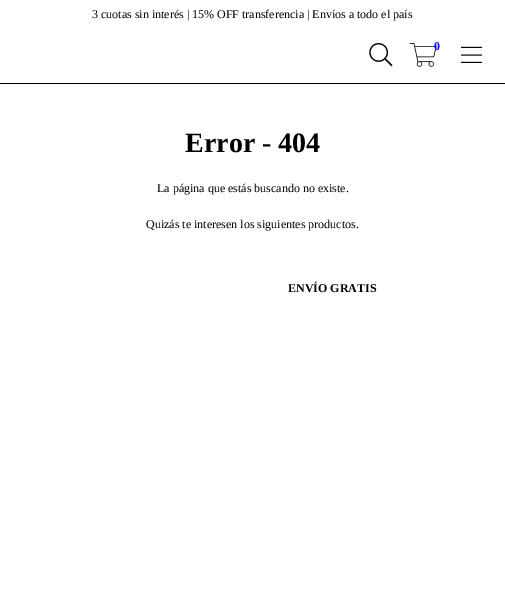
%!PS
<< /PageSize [505 605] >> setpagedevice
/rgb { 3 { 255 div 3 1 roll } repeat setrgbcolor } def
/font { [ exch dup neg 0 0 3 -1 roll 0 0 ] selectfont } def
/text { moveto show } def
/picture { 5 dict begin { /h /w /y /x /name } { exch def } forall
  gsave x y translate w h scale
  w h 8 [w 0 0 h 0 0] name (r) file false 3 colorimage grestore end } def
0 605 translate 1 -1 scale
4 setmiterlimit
255 255 255 rgb
0 0 505 605 rectfill
(img_01.rgb) 369 43 24 24 picture
(img_02.rgb) 409 43 28 24 picture
(img_03.rgb) 461 46 21 17 picture
0 0 0 rgb
0 83 505 1 rectfill
/LiberationSerif-Regular 12 font
(3 cuotas sin interés | 15% OFF transferencia | Envíos a todo el país) 92 18 text
/LiberationSerif-Bold 12 font
0 0 238 rgb
(0) 434 50 text
/LiberationSerif-Bold 28 font
0 0 0 rgb
(Error - 404) 185 152 text
/LiberationSerif-Regular 12 font
(La página que estás buscando no existe.) 157 192 text
(Quizás te interesen los siguientes productos.) 146 228 text
/LiberationSerif-Bold 12 font
(ENVÍO GRATIS) 288 292 text
showpage
